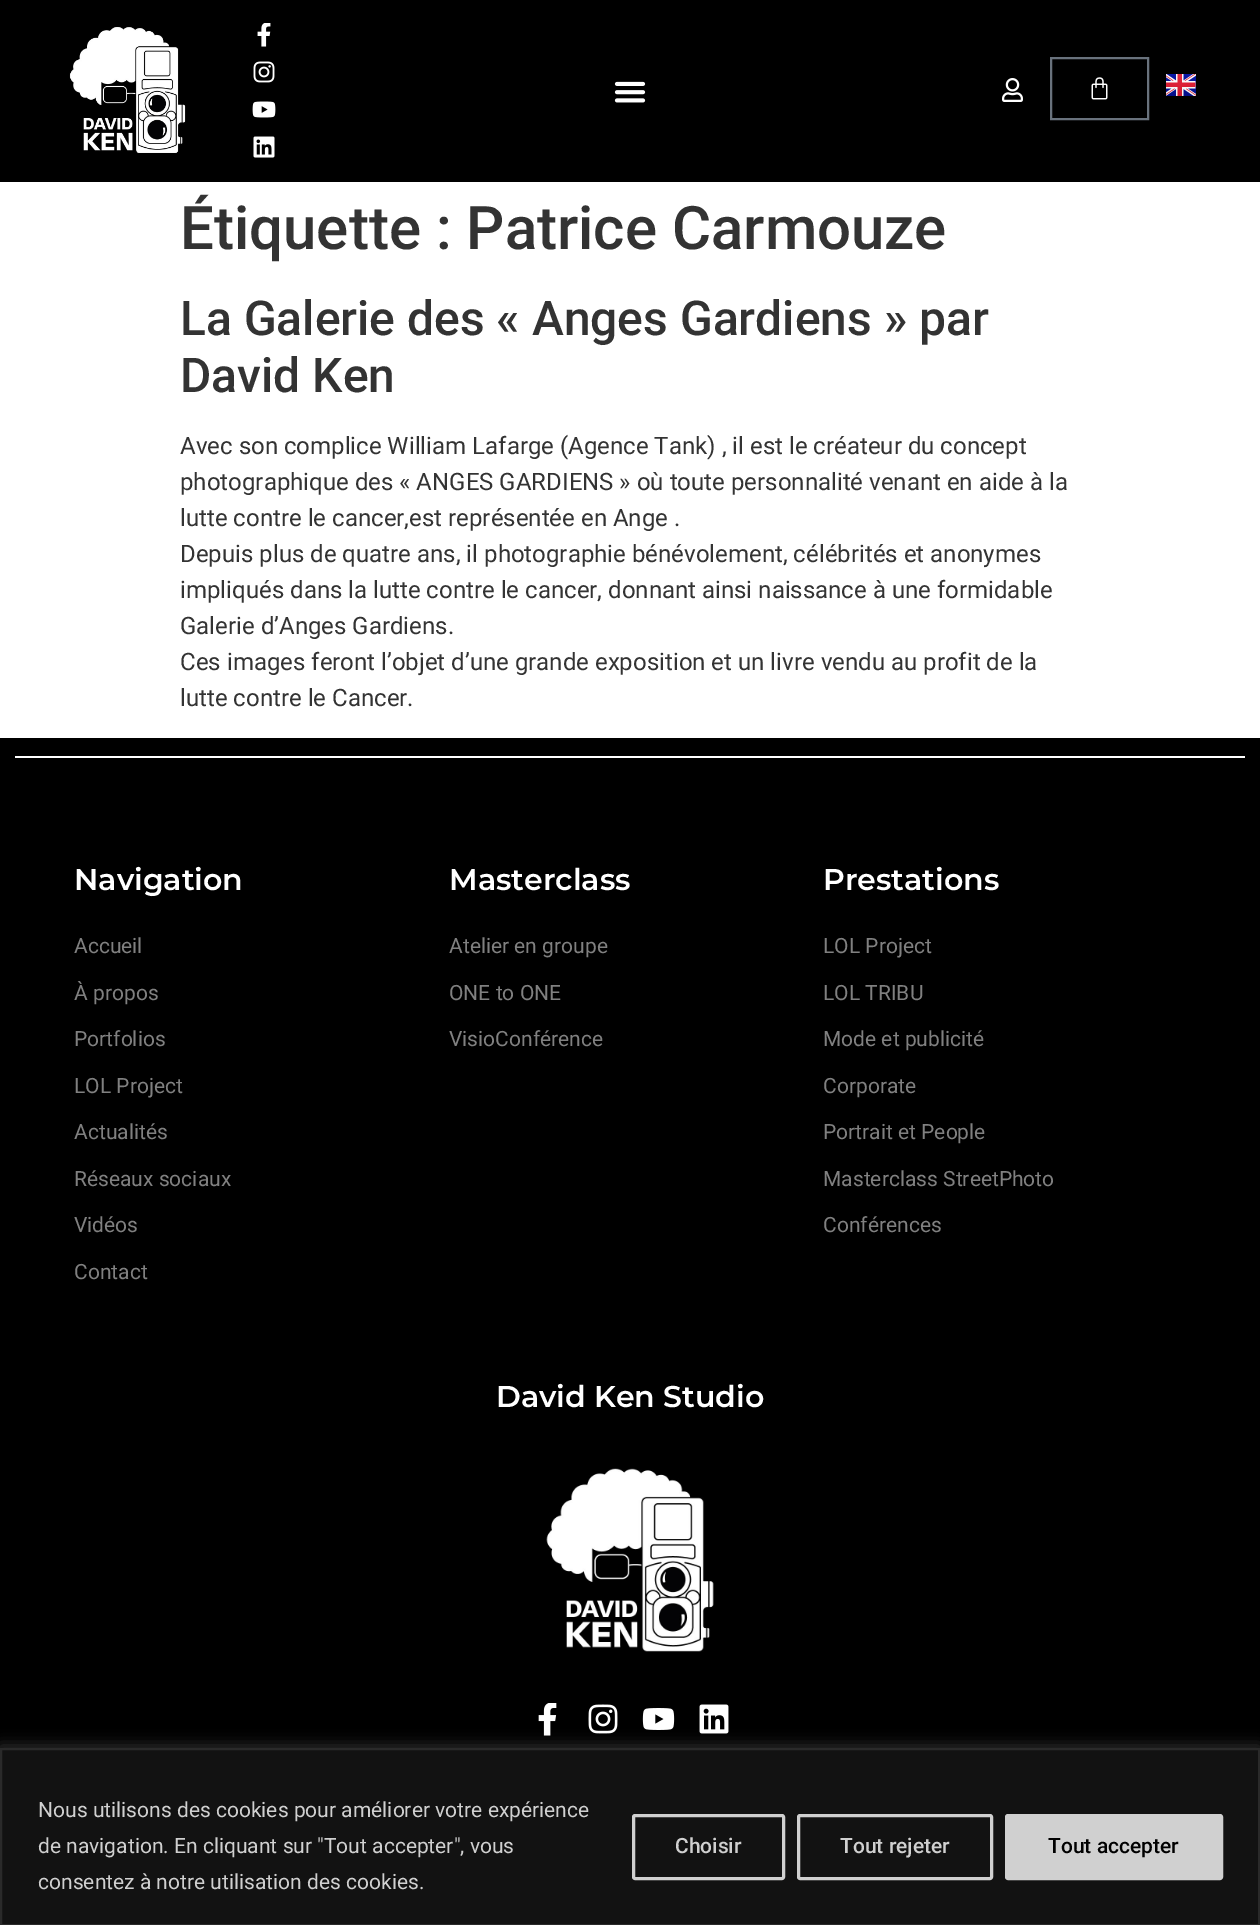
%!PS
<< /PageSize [1260 1925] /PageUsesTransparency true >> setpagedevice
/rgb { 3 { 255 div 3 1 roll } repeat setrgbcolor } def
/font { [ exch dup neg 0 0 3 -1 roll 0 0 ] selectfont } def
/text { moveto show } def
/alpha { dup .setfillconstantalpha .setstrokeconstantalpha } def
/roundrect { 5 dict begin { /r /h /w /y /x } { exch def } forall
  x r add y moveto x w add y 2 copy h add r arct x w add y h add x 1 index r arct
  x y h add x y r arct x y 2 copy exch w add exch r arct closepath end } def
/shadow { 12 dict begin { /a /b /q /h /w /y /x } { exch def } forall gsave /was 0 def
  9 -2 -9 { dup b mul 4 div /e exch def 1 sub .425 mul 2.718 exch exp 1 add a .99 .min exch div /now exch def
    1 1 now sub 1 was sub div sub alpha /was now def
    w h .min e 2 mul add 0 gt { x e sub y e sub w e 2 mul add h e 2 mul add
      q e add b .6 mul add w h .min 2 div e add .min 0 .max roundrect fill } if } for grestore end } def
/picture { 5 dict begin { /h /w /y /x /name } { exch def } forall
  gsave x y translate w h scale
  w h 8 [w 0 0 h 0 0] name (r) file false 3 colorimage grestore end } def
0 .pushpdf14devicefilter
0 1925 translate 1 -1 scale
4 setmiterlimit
255 255 255 rgb
0 0 1260 1925 rectfill
0 0 0 rgb
0 0 1260 182 rectfill
(img_01.rgb) 69 27 117 127 picture
(img_02.rgb) 257 23 14 24 picture
(img_03.rgb) 253 61 22 22 picture
(img_04.rgb) 252 101 24 17 picture
(img_05.rgb) 253 136 22 22 picture
(img_06.rgb) 614 81 32 22 picture
(img_07.rgb) 1002 78 21 24 picture
105 114 125 rgb
2 setlinewidth
1051 58 97 61 rectstroke
(img_08.rgb) 1091 77 17 23 picture
(img_09.rgb) 1166 74 30 22 picture
0 0 0 rgb
0 738 1260 1010 rectfill
255 255 255 rgb
15 756 1230 2 rectfill
(img_10.rgb) 546 1468 168 184 picture
(img_11.rgb) 538 1703 19 33 picture
(img_12.rgb) 588 1704 30 30 picture
(img_13.rgb) 642 1708 33 22 picture
(img_14.rgb) 699 1704 30 30 picture
172 171 171 rgb
0 1746 1260 179 0 7.5 0.3 shadow
18 18 18 rgb
1 1749 moveto 1258 0 rlineto 0 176 rlineto -1258 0 rlineto closepath gsave fill grestore
42 42 42 rgb
stroke
208 208 208 rgb
3 setlinewidth
633.5 1815.5 150 63 1.5 roundrect stroke
798.5 1815.5 193 63 1.5 roundrect stroke
1006.5 1815.5 215 63 1.5 roundrect gsave fill grestore
stroke
/Roboto-Medium 60 font
51 51 51 rgb
(Étiquette : Patrice Carmouze) 180 249 text
/Roboto-Medium 48 font
(La Galerie des « Anges Gardiens » par) 180 335 text
(David Ken) 180 392 text
/Roboto-Regular 24 font
(Avec son complice William Lafarge \(Agence Tank\) , il est le créateur du concept) 180 454 text
(photographique des « ANGES GARDIENS » où toute personnalité venant en aide à la) 180 490 text
(lutte contre le cancer,est représentée en Ange .) 180 526 text
(Depuis plus de quatre ans, il photographie bénévolement, célébrités et anonymes) 180 562 text
(impliqués dans la lutte contre le cancer, donnant ainsi naissance à une formidable) 180 598 text
(Galerie d’Anges Gardiens.) 180 634 text
(Ces images feront l’objet d’une grande exposition et un livre vendu au profit de la) 180 670 text
(lutte contre le Cancer.) 180 706 text
/Montserrat-SemiBold 30 font
255 255 255 rgb
(Navigation) 74 890 text
/Roboto-Regular 21 font
128 128 128 rgb
(Accueil) 74 953 text
(À propos) 74 1000 text
(Portfolios) 74 1046 text
(LOL Project) 74 1093 text
(Actualités) 74 1139 text
(Réseaux sociaux) 74 1186 text
(Vidéos) 74 1232 text
(Contact) 74 1279 text
/Montserrat-SemiBold 30 font
255 255 255 rgb
(Masterclass) 449 890 text
/Roboto-Regular 21 font
128 128 128 rgb
(Atelier en groupe) 449 953 text
(ONE to ONE) 449 1000 text
(VisioConférence) 449 1046 text
/Montserrat-SemiBold 30 font
255 255 255 rgb
(Prestations) 823 890 text
/Roboto-Regular 21 font
128 128 128 rgb
(LOL Project) 823 953 text
(LOL TRIBU) 823 1000 text
(Mode et publicité) 823 1046 text
(Corporate) 823 1093 text
(Portrait et People) 823 1139 text
(Masterclass StreetPhoto) 823 1186 text
(Conférences) 823 1232 text
/Montserrat-SemiBold 30 font
255 255 255 rgb
(David Ken Studio) 496 1407 text
/Roboto-Regular 21 font
208 208 208 rgb
(Nous utilisons des cookies pour améliorer votre expérience) 38 1817 text
(de navigation. En cliquant sur "Tout accepter", vous) 38 1853 text
(consentez à notre utilisation des cookies.) 38 1889 text
/Roboto-Medium 21 font
(Choisir) 675 1853 text
(Tout rejeter) 840 1853 text
0 0 0 rgb
(Tout accepter) 1048 1853 text
.poppdf14devicefilter showpage
